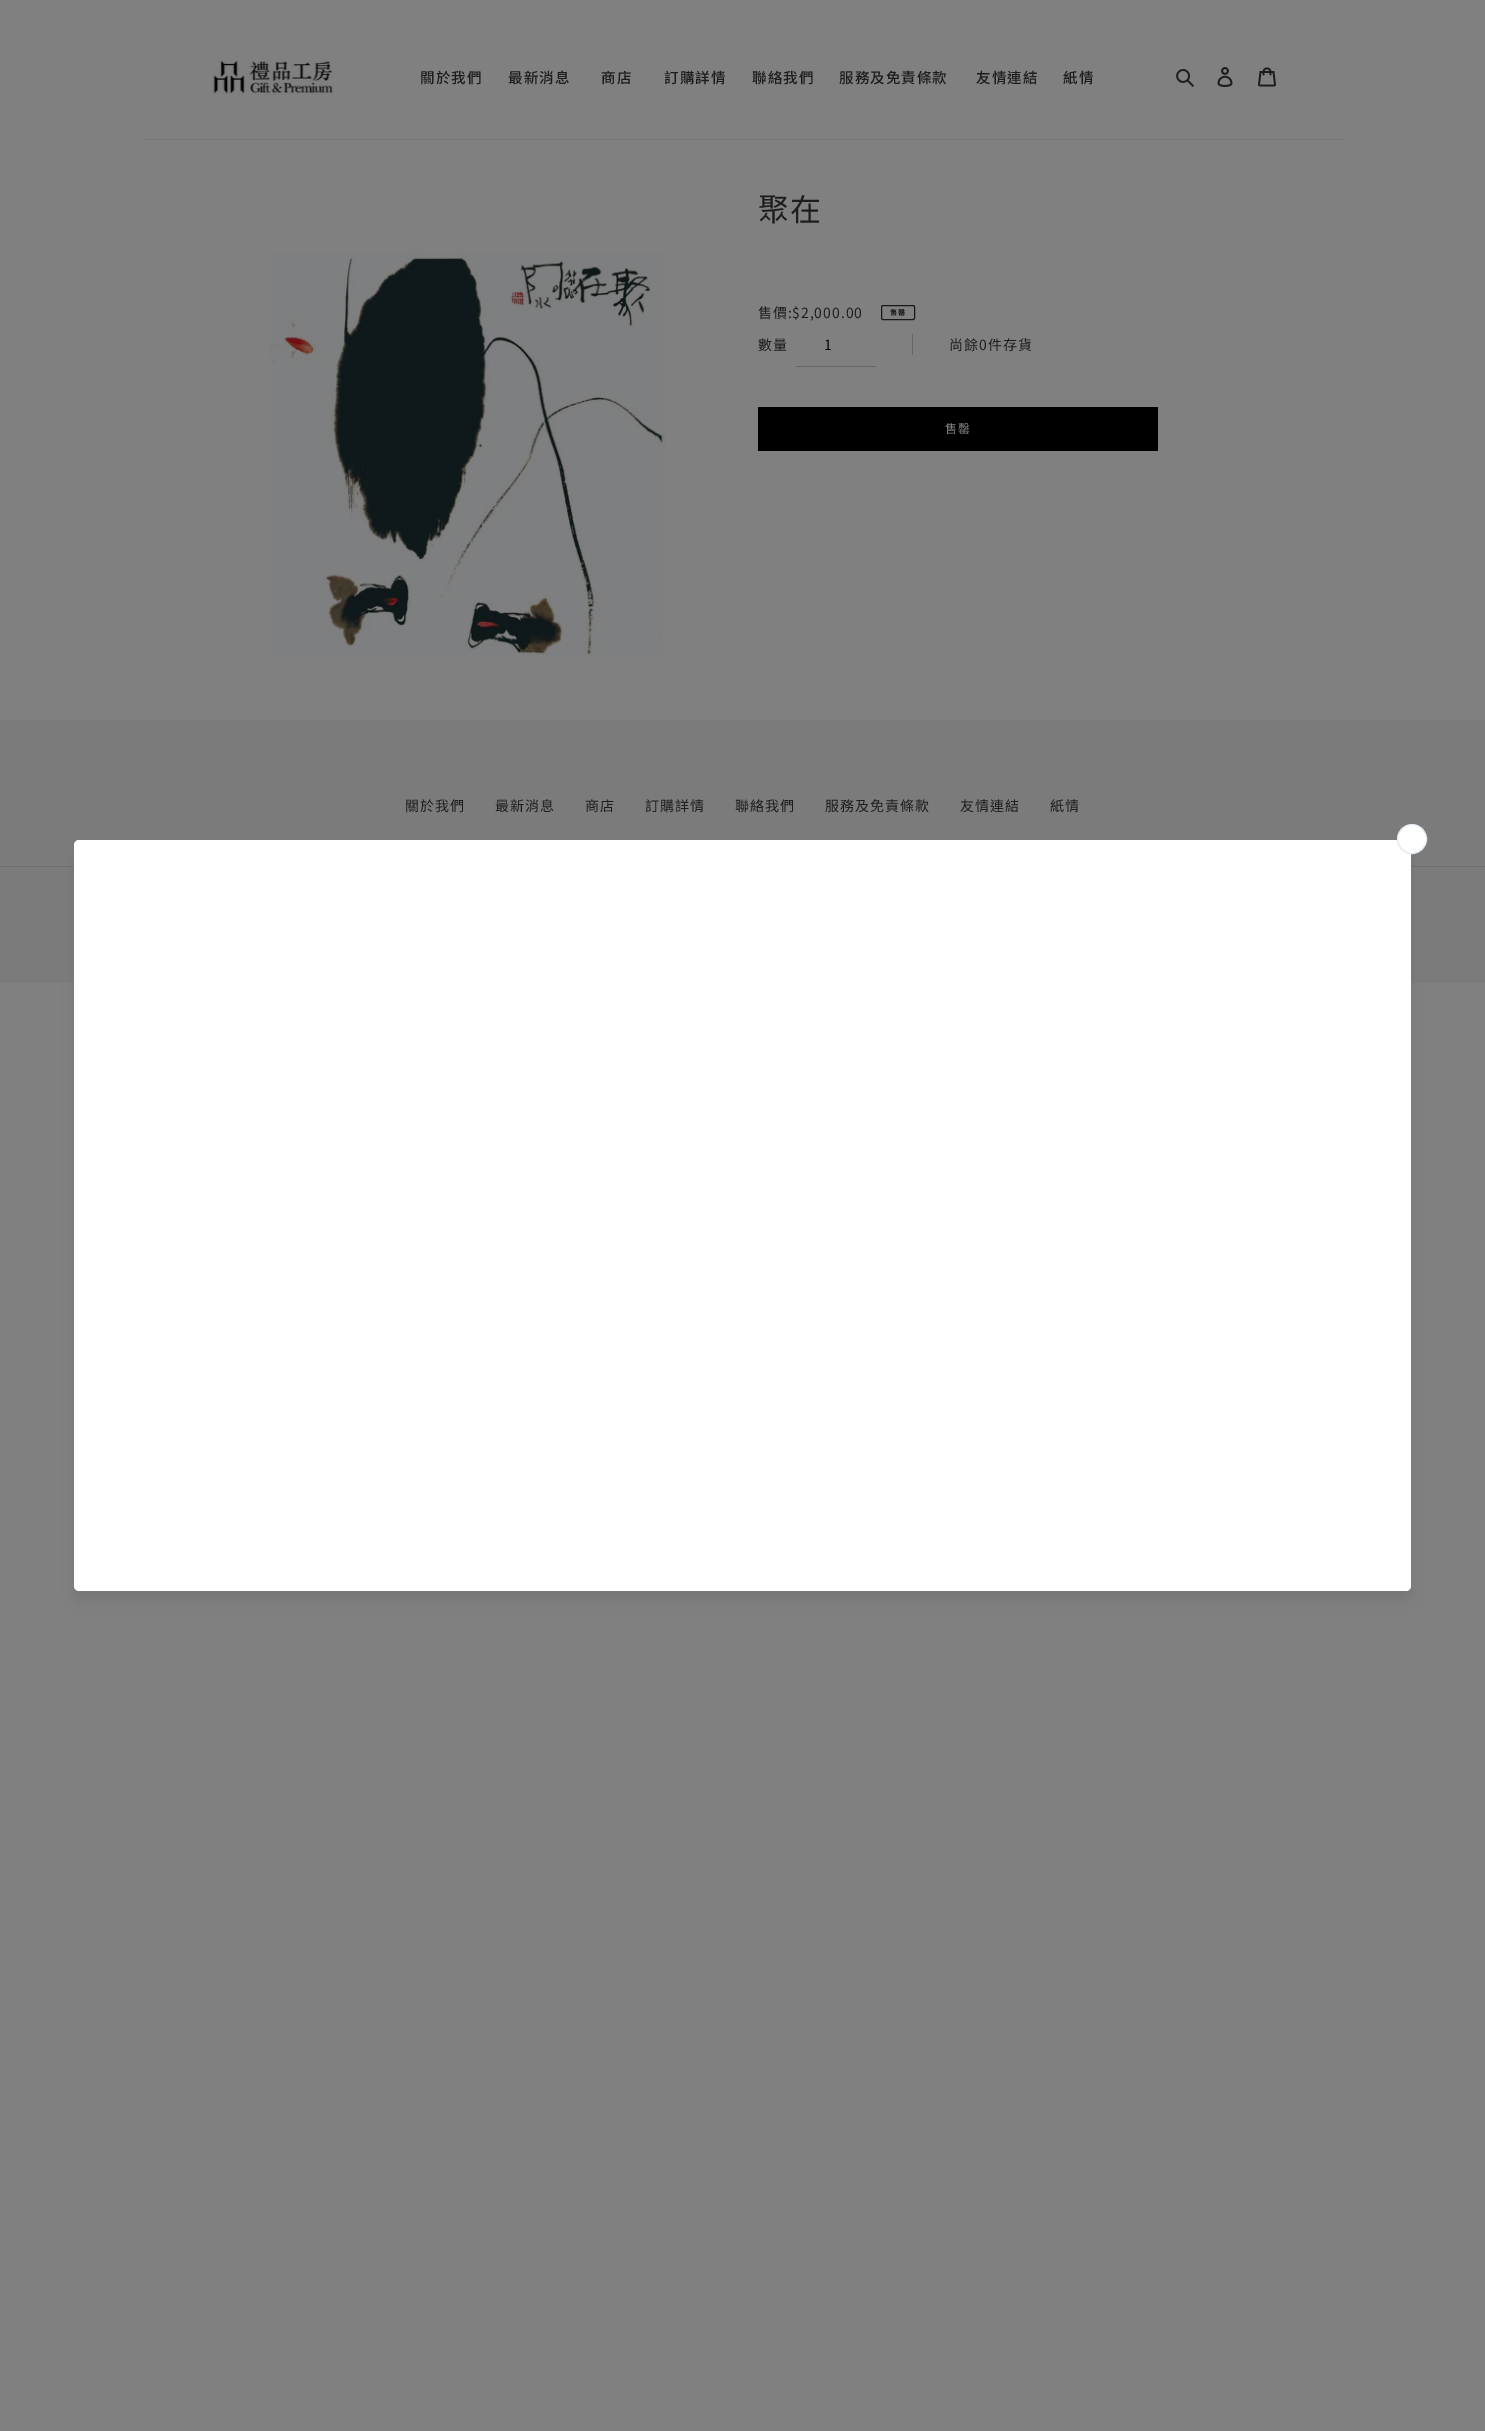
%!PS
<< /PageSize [1485 2431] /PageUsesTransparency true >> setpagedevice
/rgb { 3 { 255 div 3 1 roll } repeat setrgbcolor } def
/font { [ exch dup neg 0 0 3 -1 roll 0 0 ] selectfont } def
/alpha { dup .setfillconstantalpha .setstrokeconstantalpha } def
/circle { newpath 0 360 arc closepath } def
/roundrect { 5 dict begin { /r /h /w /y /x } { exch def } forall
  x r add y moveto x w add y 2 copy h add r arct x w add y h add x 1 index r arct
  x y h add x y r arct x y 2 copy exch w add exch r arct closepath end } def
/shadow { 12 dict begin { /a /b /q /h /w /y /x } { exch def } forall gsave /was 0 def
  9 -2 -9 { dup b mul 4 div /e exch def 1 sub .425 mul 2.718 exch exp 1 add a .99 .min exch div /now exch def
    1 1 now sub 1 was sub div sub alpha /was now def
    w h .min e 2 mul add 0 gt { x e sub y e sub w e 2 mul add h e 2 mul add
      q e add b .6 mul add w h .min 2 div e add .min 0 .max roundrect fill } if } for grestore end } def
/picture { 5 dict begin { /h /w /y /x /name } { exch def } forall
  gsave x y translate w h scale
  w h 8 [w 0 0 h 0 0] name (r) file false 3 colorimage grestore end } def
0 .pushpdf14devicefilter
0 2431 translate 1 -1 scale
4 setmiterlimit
128 128 128 rgb
0 0 1485 2431 rectfill
118 118 118 rgb
143 139 1200 1 rectfill
(img_01.rgb) 213 60 121 35 picture
(img_02.rgb) 1176 69 18 18 picture
(img_03.rgb) 1217 67 16 20 picture
(img_04.rgb) 1258 67 18 20 picture
(img_05.rgb) 269 252 397 405 picture
26 25 25 rgb
881.5 305.5 33 14 1.5 roundrect stroke
102 102 102 rgb
796 366 80 1 rectfill
912 334 1 21 rectfill
0 0 0 rgb
758 407 400 44 rectfill
123 123 123 rgb
0 720 1485 263 rectfill
111 111 111 rgb
0 866 1485 1 rectfill
0 0 0 rgb
77 853 1331 745 2 7.5 0.1 shadow
gsave
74 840 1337 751 rectclip
77 843 1331 745 2 10 0.12 shadow
grestore
255 255 255 rgb
74 840 1337 751 5 roundrect fill
1412 839 14.5 circle gsave fill grestore
226 232 240 rgb
stroke
/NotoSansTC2-Thin 14.5 font
29 29 29 rgb
420 83 moveto 1 0 (關於我們) ashow
508 83 moveto 1 0 (最新消息) ashow
601 83 moveto 1 0 (商店) ashow
664 83 moveto 1 0 (訂購詳情) ashow
752 83 moveto 1 0 (聯絡我們) ashow
839 83 moveto 1 0 (服務及免責條款) ashow
976 83 moveto 1 0 (友情連結) ashow
1063 83 moveto 1 0 (紙情) ashow
/NotoSansTC-Thin 31 font
758 221 moveto 1 0 (聚在) ashow
/NotoSansTC-Thin 14 font
758 318 moveto 1 0 (售價:) ashow
792 318 moveto 1 0 ($2,000.00) ashow
/NotoSansTC-Bold 7 font
890 315 moveto 1 0 (售罄) ashow
/NotoSansTC-Thin 14 font
758 350 moveto 1 0 (數量) ashow
0 0 0 rgb
824 350 moveto 1 0 (1) ashow
29 29 29 rgb
949 350 moveto 1 0 (尚餘0件存貨) ashow
/NotoSansCJKTC-Regular 12 font
128 128 128 rgb
945 433 moveto 1 0 (售罄) ashow
/NotoSansTC-Thin 14 font
29 29 29 rgb
405 811 moveto 1 0 (關於我們) ashow
495 811 moveto 1 0 (最新消息) ashow
585 811 moveto 1 0 (商店) ashow
645 811 moveto 1 0 (訂購詳情) ashow
735 811 moveto 1 0 (聯絡我們) ashow
825 811 moveto 1 0 (服務及免責條款) ashow
960 811 moveto 1 0 (友情連結) ashow
1050 811 moveto 1 0 (紙情) ashow
.poppdf14devicefilter showpage
